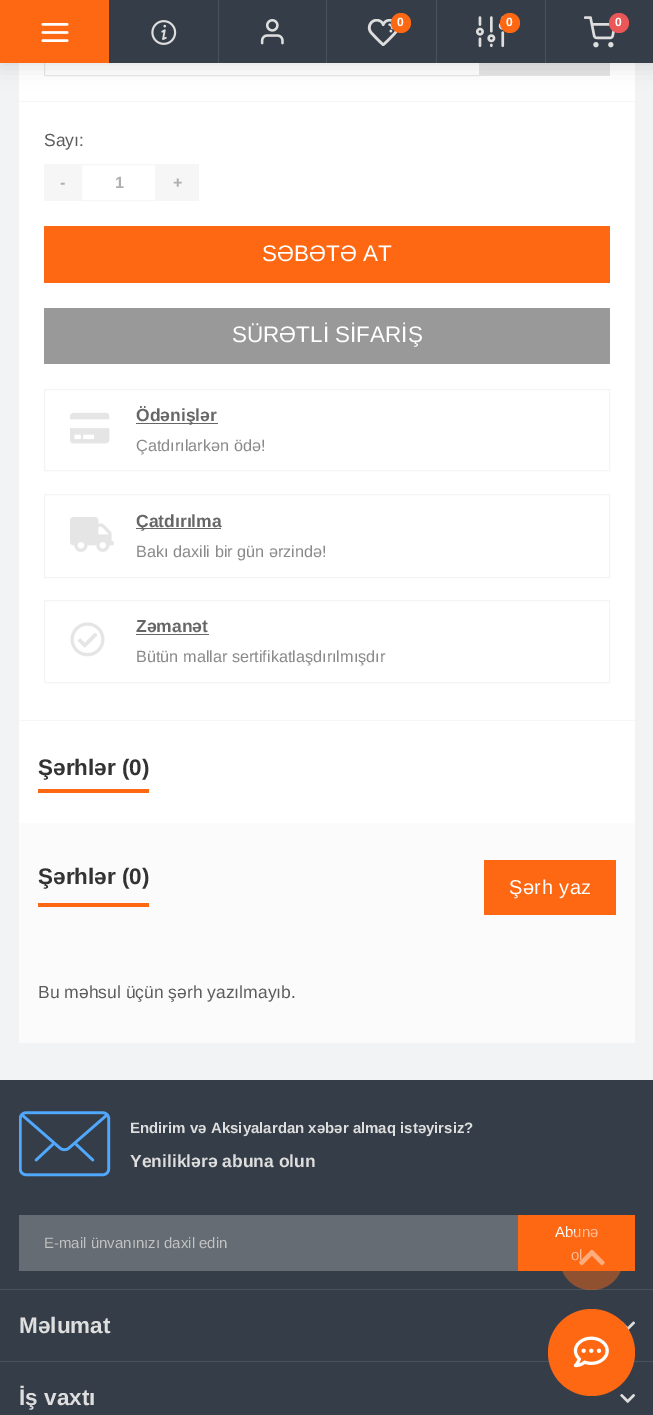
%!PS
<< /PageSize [653 1415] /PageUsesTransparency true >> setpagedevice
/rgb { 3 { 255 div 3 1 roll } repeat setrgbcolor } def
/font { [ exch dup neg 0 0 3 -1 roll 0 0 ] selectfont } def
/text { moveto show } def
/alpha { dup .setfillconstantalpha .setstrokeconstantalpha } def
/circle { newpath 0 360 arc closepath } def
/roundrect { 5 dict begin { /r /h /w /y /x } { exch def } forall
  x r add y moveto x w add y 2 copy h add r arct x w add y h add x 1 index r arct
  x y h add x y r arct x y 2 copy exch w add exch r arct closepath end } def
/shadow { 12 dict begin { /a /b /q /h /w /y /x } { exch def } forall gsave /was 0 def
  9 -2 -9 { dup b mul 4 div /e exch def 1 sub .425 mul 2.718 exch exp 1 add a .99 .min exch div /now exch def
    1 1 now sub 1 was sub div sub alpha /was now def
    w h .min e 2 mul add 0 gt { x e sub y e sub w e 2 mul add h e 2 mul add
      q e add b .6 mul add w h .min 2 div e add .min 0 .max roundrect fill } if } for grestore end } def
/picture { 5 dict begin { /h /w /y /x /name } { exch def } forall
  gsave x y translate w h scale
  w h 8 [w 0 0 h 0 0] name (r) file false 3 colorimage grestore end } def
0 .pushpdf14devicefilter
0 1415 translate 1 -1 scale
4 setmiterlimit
242 243 245 rgb
0 0 653 1415 rectfill
255 255 255 rgb
19 63 616 760 rectfill
229 229 229 rgb
479 26 moveto 130 0 rlineto 0.5 0 1 0.5 1 1 rcurveto 0 48 rlineto 0 0.5 -0.5 1 -1 1 rcurveto -130 0 rlineto closepath fill
231 231 231 rgb
45 26.5 moveto 434.5 0 rlineto 0 49 rlineto -434.5 0 rlineto -0.5 0 -0.5 0 -0.5 -0.5 rcurveto 0 -48 rlineto 0 -0.5 0 -0.5 0.5 -0.5 rcurveto closepath stroke
0 0 0 rgb
0 5 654 63 0 9.5 0.1 shadow
53 62 72 rgb
109 0 544 63 rectfill
255 104 19 rgb
0 0 109 63 rectfill
(img_01.rgb) 41 23 28 19 picture
(img_02.rgb) 151 20 26 25 picture
73 81 90 rgb
218 0 1 63 rectfill
(img_03.rgb) 260 19 24 26 picture
326 0 1 63 rectfill
(img_04.rgb) 367 19 31 27 picture
255 104 19 rgb
401 23 10 circle fill
73 81 90 rgb
436 0 1 63 rectfill
(img_05.rgb) 476 16 29 32 picture
255 104 19 rgb
510 23 10 circle fill
73 81 90 rgb
545 0 1 63 rectfill
(img_06.rgb) 584 16 31 32 picture
235 87 87 rgb
619 23 10 circle fill
246 246 246 rgb
19 720 616 1 rectfill
19 101 616 1 rectfill
44 164 37 37 rectfill
81.5 164.5 74 36 rectstroke
156 164 43 37 rectfill
255 104 19 rgb
44 226 566 57 1 roundrect fill
153 153 153 rgb
44 308 566 56 1 roundrect fill
244 244 244 rgb
44.5 389.5 565 81 rectstroke
(img_07.rgb) 70 412 40 32 picture
102 102 102 rgb
136 423 82 1 rectfill
244 244 244 rgb
44.5 494.5 565 83 rectstroke
(img_08.rgb) 70 517 44 35 picture
102 102 102 rgb
136 528 85 1 rectfill
244 244 244 rgb
44.5 600.5 565 82 rectstroke
(img_09.rgb) 70 622 35 35 picture
102 102 102 rgb
136 634 73 1 rectfill
255 104 19 rgb
38 789 111 4 rectfill
251 251 251 rgb
19 823 616 220 rectfill
255 104 19 rgb
38 903 111 4 rectfill
484 860 132 55 1 roundrect fill
53 62 72 rgb
0 1080 653 335 rectfill
(img_10.rgb) 19 1111 92 66 picture
101 108 115 rgb
20 1215 moveto 498 0 rlineto 0 56 rlineto -498 0 rlineto -0.5 0 -1 -0.5 -1 -1 rcurveto 0 -54 rlineto 0 -0.5 0.5 -1 1 -1 rcurveto closepath fill
255 104 19 rgb
518 1215 117 56 rectfill
73 81 90 rgb
0 1289 653 1 rectfill
0 1361 653 1 rectfill
(img_11.rgb) 621 1321 14 10 picture
(img_12.rgb) 620 1394 16 9 picture
255 104 19 rgb
591.5 1352.5 43.5 circle fill
(img_14.rgb) 573 1336 36 32 picture
/LiberationSans-Bold 12 font
255 255 255 rgb
(0) 397 26 text
(0) 506 26 text
(0) 615 26 text
/LiberationSans-Regular 17.5 font
92 92 92 rgb
(Sayı:) 44 146 text
/LiberationSans-Bold 16.25 font
175 175 175 rgb
(-) 60 188 text
(1) 115 188 text
(+) 173 188 text
/LiberationSans-Regular 22.5 font
255 255 255 rgb
(SƏBƏTƏ AT) 262 261 text
(SÜRƏTLİ SİFARİŞ) 232 342 text
/LiberationSans-Bold 17.5 font
102 102 102 rgb
(Ödənişlər) 136 421 text
/LiberationSans-Regular 16.25 font
137 137 137 rgb
(Çatdırılarkən ödə!) 136 451 text
/LiberationSans-Bold 17.5 font
102 102 102 rgb
(Çatdırılma) 136 527 text
/LiberationSans-Regular 16.25 font
137 137 137 rgb
(Bakı daxili bir gün ərzində!) 136 557 text
/LiberationSans-Bold 17.5 font
102 102 102 rgb
(Zəmanət) 136 632 text
/LiberationSans-Regular 16.25 font
137 137 137 rgb
(Bütün mallar sertifikatlaşdırılmışdır) 136 662 text
/LiberationSans-Bold 22.5 font
51 51 51 rgb
(Şərhlər \(0\)) 38 775 text
(Şərhlər \(0\)) 38 884 text
/LiberationSans-Regular 20 font
255 255 255 rgb
509 894 moveto 0.5 0 (Şərh yaz) ashow
/LiberationSans-Regular 17.5 font
92 92 92 rgb
(Bu məhsul üçün şərh yazılmayıb.) 38 998 text
/LiberationSans-Bold 15 font
222 222 222 rgb
(Endirim və Aksiyalardan xəbər almaq istəyirsiz?) 130 1133 text
/LiberationSans-Bold 17.5 font
(Yeniliklərə abuna olun) 130 1167 text
/LiberationSans-Regular 15 font
194 194 194 rgb
(E-mail ünvanınızı daxil edin) 44 1248 text
255 255 255 rgb
(Abunə) 555 1237 text
(ol) 571 1260 text
/LiberationSans-Bold 22.5 font
222 222 222 rgb
(Məlumat) 19 1333 text
(İş vaxtı) 19 1405 text
0.45 alpha
255 104 19 rgb
560 1228 63 62 31 roundrect fill
1 alpha
(img_13.rgb) 579 1249 26 17 picture
.poppdf14devicefilter showpage
